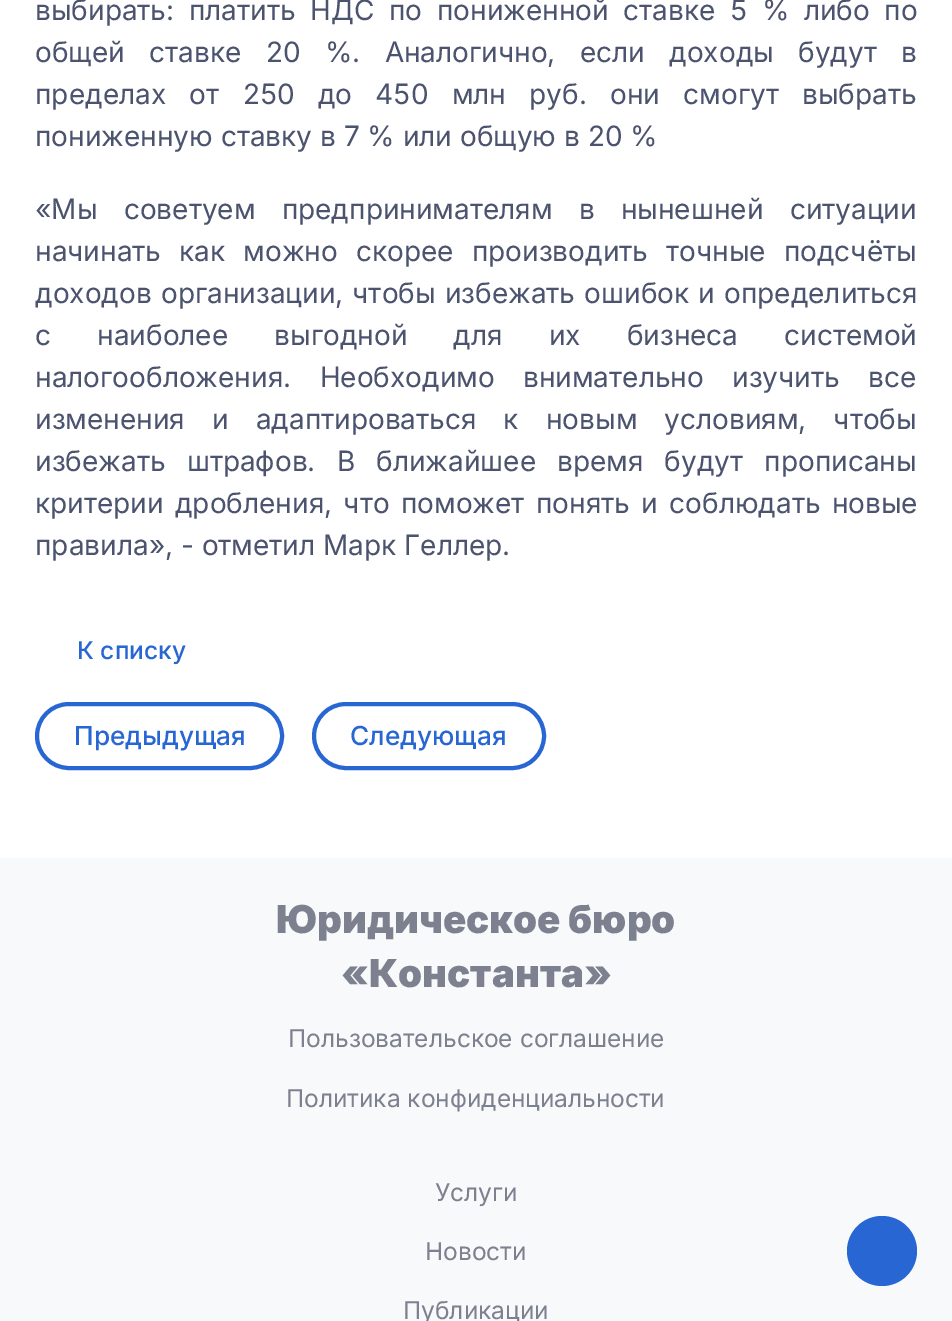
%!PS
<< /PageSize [952 1321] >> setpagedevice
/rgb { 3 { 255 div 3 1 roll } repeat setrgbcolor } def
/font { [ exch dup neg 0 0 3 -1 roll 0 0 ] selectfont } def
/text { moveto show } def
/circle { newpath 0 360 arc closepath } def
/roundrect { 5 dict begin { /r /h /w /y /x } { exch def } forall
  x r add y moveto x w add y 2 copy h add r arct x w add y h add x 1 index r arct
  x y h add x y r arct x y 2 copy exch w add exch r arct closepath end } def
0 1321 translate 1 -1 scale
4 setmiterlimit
255 255 255 rgb
0 0 952 1321 rectfill
40 102 211 rgb
4 setlinewidth
37 704 245 64 32 roundrect stroke
314 704 230 64 32 roundrect stroke
248 249 251 rgb
0 858 952 463 rectfill
40 102 211 rgb
882 1251 35 circle fill
/Inter-Regular 28 font
75 83 111 rgb
35 20 moveto 6.75 0 32 (выбирать: платить НДС по пониженной ставке 5 % либо по) widthshow
35 62 moveto 16.5 0 32 (общей ставке 20 %. Аналогично, если доходы будут в) widthshow
35 104 moveto 15.5 0 32 (пределах от 250 до 450 млн руб. они смогут выбрать) widthshow
(пониженную ставку в 7 % или общую в 20 %) 35 146 text
35 219 moveto 18.5 0 32 («Мы советуем предпринимателям в нынешней ситуации) widthshow
35 261 moveto 10.25 0 32 (начинать как можно скорее производить точные подсчёты) widthshow
35 303 moveto 1.25 0 32 (доходов организации, чтобы избежать ошибок и определиться) widthshow
35 345 moveto 38.25 0 32 (с наиболее выгодной для их бизнеса системой) widthshow
35 387 moveto 20.5 0 32 (налогообложения. Необходимо внимательно изучить все) widthshow
35 429 moveto 19.25 0 32 (изменения и адаптироваться к новым условиям, чтобы) widthshow
35 471 moveto 13.25 0 32 (избежать штрафов. В ближайшее время будут прописаны) widthshow
35 513 moveto 3.5 0 32 (критерии дробления, что поможет понять и соблюдать новые) widthshow
(правила», - отметил Марк Геллер.) 35 555 text
/Inter-Medium 24.5 font
40 102 211 rgb
(К списку) 77 659 text
/Inter-Medium 26.25 font
(Предыдущая) 74 745 text
(Следующая) 350 745 text
/Inter-Black 38.5 font
124 128 143 rgb
(Юридическое бюро) 276 933 text
(«Константа») 341 987 text
/Inter-Regular 24.5 font
(Пользовательское соглашение) 288 1047 text
(Политика конфиденциальности) 286 1107 text
(Услуги) 435 1201 text
(Новости) 425 1260 text
(Публикации) 403 1319 text
showpage
